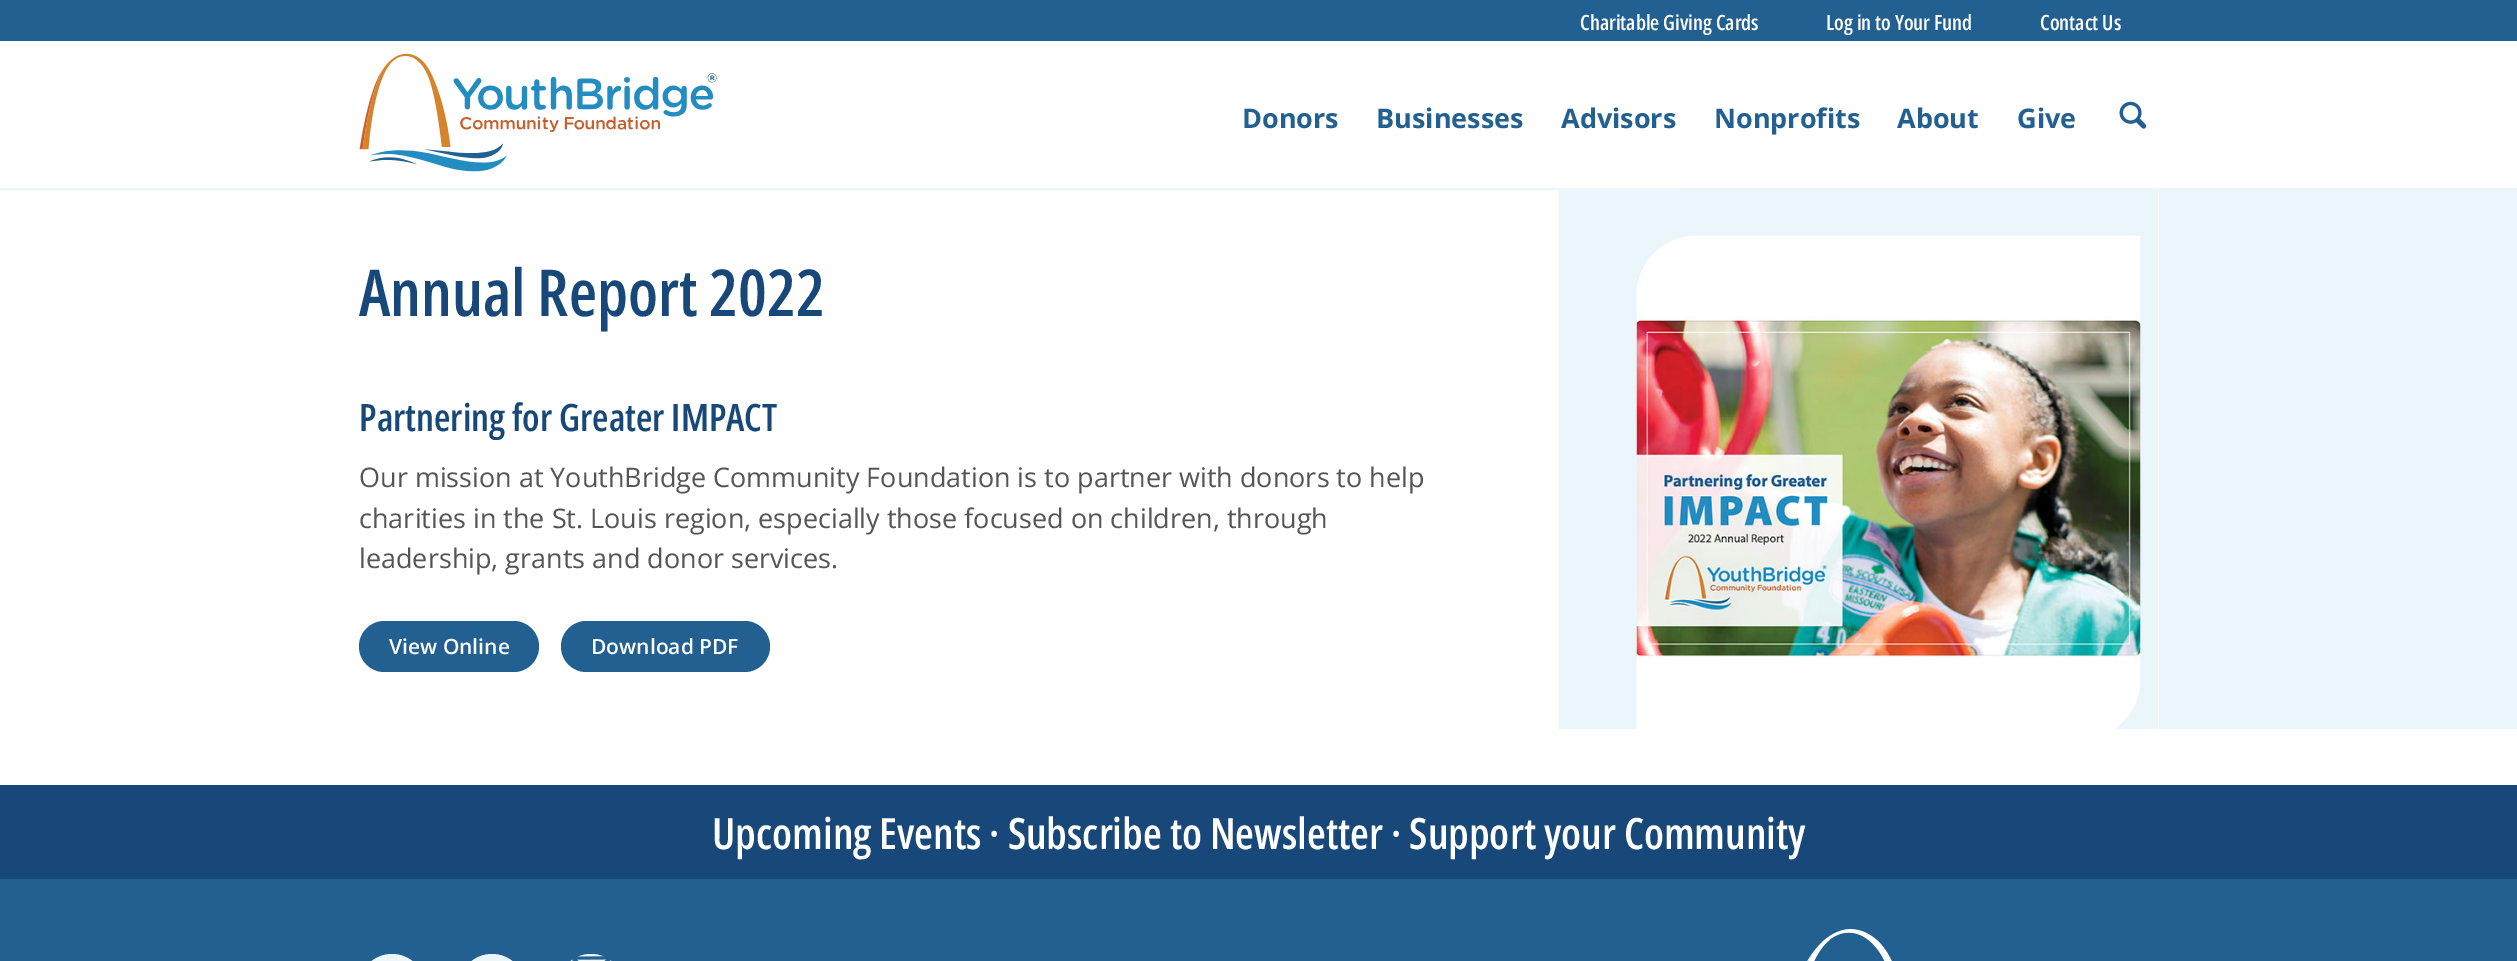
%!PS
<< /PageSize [2517 961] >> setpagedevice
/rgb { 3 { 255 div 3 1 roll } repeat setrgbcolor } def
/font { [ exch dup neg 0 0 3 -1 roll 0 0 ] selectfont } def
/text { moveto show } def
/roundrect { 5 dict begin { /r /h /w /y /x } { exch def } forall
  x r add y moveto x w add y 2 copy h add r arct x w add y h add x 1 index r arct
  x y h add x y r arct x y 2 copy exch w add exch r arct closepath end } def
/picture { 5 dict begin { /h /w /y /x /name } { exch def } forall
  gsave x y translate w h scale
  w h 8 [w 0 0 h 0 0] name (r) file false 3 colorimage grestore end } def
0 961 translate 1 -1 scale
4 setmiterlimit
255 255 255 rgb
0 0 2517 961 rectfill
35 96 146 rgb
0 0 2517 41 rectfill
235 246 250 rgb
0 188 2517 3 rectfill
(img_01.rgb) 359 53 358 119 picture
(img_02.rgb) 2119 101 28 28 picture
(img_03.rgb) 0 190 2517 539 picture
255 255 255 rgb
2158 191 1 538 rectfill
(img_04.rgb) 359 190 1800 539 picture
35 96 146 rgb
359 621 180 51 25.5 roundrect fill
561 621 209 51 25.5 roundrect fill
(img_05.rgb) 1636 235 505 494 picture
23 72 121 rgb
0 785 2517 94 rectfill
35 96 146 rgb
0 879 2517 82 rectfill
(img_06.rgb) 1807 929 85 32 picture
235 246 250 rgb
359 954 66 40 33 roundrect fill
459 954 66 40 33 roundrect fill
558 954 66 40 33 roundrect fill
(img_07.rgb) 572 956 39 5 picture
/OpenSans-SemiBold 21 font
255 255 255 rgb
(Charitable Giving Cards) 1580 30 text
(Log in to Your Fund) 1826 30 text
(Contact Us) 2040 30 text
/OpenSans-Bold 27 font
35 96 146 rgb
(Donors) 1242 128 text
(Businesses) 1376 128 text
(Advisors) 1561 128 text
(Nonprofits) 1714 128 text
(About) 1897 128 text
(Give) 2017 128 text
/OpenSans-SemiBold 64.75 font
23 72 121 rgb
(Annual Report 2022) 359 316 text
/OpenSans-SemiBold 37.75 font
(Partnering for Greater IMPACT) 359 431 text
/OpenSans-Regular 27 font
85 85 85 rgb
(Our mission at YouthBridge Community Foundation is to partner with donors to help) 359 487 text
(charities in the St. Louis region, especially those focused on children, through) 359 528 text
(leadership, grants and donor services.) 359 568 text
/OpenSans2-SemiBold 21 font
255 255 255 rgb
(View Online) 389 654 text
(Download PDF) 591 654 text
/OpenSans-SemiBold 43.2 font
(Upcoming Events · Subscribe to Newsletter · Support your Community) 712 849 text
showpage
